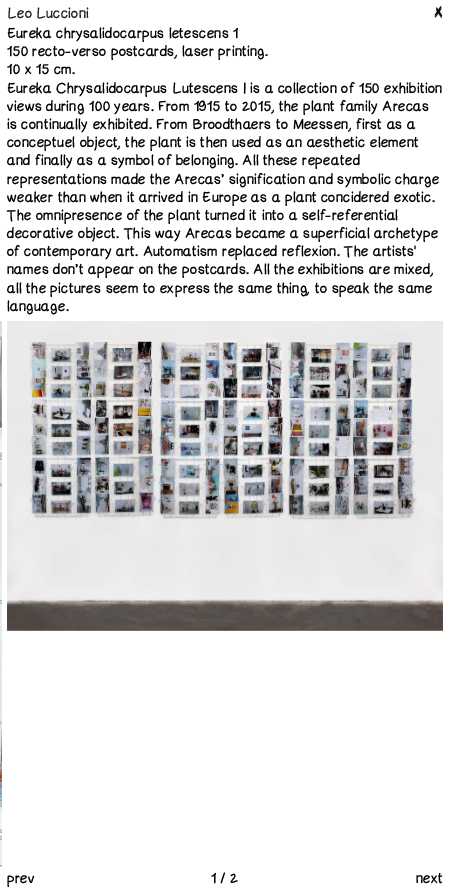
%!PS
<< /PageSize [450 891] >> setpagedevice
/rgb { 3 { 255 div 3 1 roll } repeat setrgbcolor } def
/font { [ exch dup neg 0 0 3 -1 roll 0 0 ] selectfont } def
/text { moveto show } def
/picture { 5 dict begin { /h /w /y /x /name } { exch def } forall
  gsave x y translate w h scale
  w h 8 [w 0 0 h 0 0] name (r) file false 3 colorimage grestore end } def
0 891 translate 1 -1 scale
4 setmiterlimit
255 255 255 rgb
0 0 450 891 rectfill
(img_01.rgb) 0 321 2 546 picture
(img_02.rgb) 7 321 436 310 picture
(img_03.rgb) 434 8 9 10 picture
/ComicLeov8-Medium 14 font
0 0 0 rgb
(X) 434 16 text
(Eureka chrysalidocarpus letescens 1) 7 38 text
(150 recto-verso postcards, laser printing.) 7 56 text
(10 x 15 cm.) 7 74 text
(Eureka Chrysalidocarpus Lutescens I is a collection of 150 exhibition) 7 93 text
(views during 100 years. From 1915 to 2015, the plant family Arecas) 7 111 text
(is continually exhibited. From Broodthaers to Meessen, first as a) 7 129 text
(conceptuel object, the plant is then used as an aesthetic element) 7 147 text
(and finally as a symbol of belonging. All these repeated) 7 165 text
(representations made the Arecas’ signification and symbolic charge) 7 184 text
(weaker than when it arrived in Europe as a plant concidered exotic.) 7 202 text
(The omnipresence of the plant turned it into a self-referential) 7 220 text
(decorative object. This way Arecas became a superficial archetype) 7 238 text
(of contemporary art. Automatism replaced reflexion. The artists') 7 256 text
(names don’t appear on the postcards. All the exhibitions are mixed,) 7 274 text
(all the pictures seem to express the same thing, to speak the same) 7 293 text
(language.) 7 311 text
(prev) 7 883 text
(next) 416 883 text
(1 / 2) 211 883 text
34 34 34 rgb
(Leo Luccioni) 7 18 text
showpage
